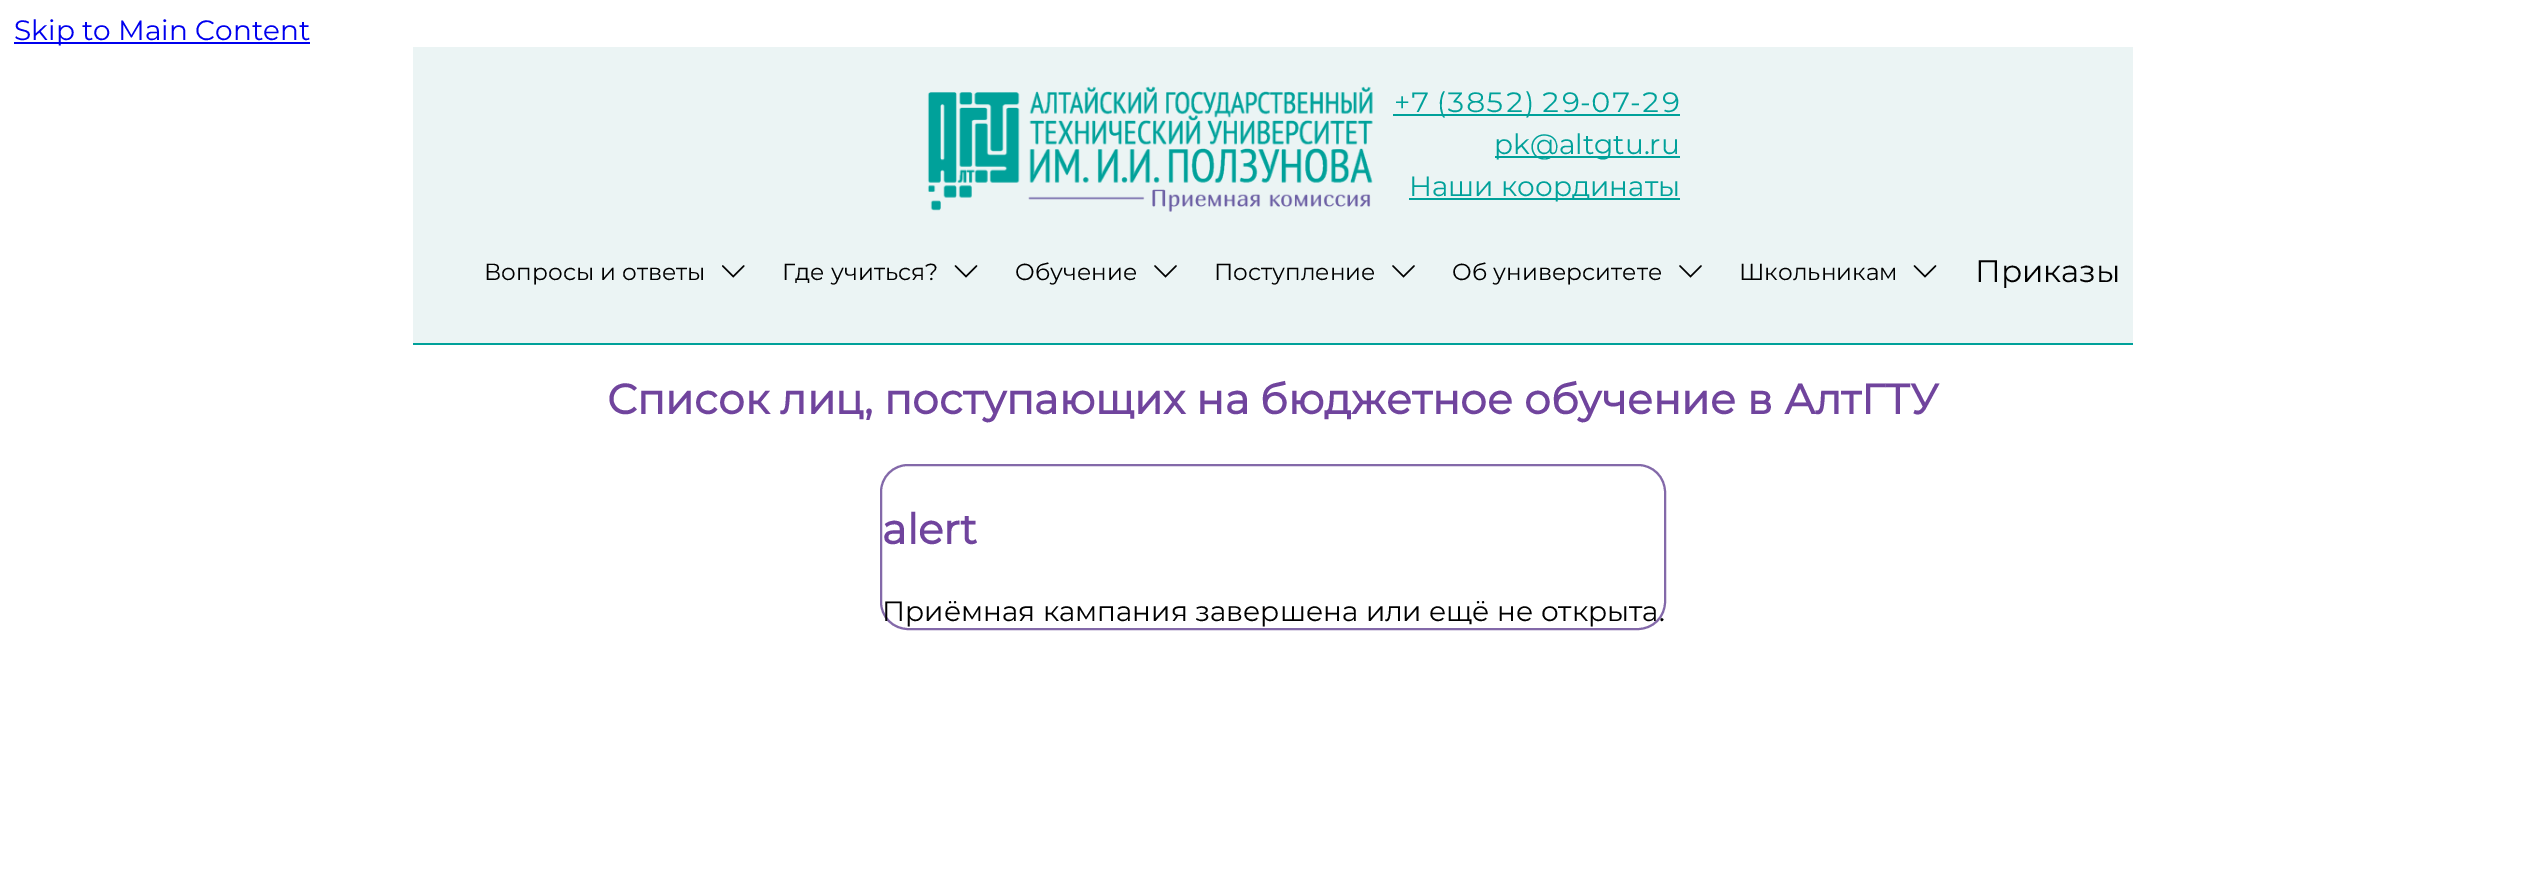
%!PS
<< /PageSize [2545 888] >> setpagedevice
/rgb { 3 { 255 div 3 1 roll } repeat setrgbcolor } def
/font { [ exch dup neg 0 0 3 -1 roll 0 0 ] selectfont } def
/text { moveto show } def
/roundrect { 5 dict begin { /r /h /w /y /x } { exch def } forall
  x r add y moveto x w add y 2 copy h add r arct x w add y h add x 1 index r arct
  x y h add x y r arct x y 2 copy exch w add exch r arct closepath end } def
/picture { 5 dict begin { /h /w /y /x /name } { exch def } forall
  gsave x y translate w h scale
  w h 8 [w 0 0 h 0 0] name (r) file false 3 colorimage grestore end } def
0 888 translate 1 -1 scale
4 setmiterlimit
255 255 255 rgb
0 0 2545 888 rectfill
0 0 238 rgb
14 42 296 2 rectfill
235 244 244 rgb
413 47 1720 296 rectfill
0 161 154 rgb
413 343 1720 2 rectfill
(img_01.rgb) 927 86 446 126 picture
1393 114 287 2 rectfill
1495 156 185 2 rectfill
1409 198 271 2 rectfill
(img_02.rgb) 722 265 23 13 picture
(img_03.rgb) 954 265 24 13 picture
(img_04.rgb) 1154 265 23 13 picture
(img_04.rgb) 1392 265 23 13 picture
(img_04.rgb) 1679 265 23 13 picture
(img_03.rgb) 1913 265 24 13 picture
131 105 169 rgb
2 setlinewidth
881 465 784 164 27 roundrect stroke
/Montserrat-Regular 28 font
0 0 238 rgb
(Skip to Main Content) 14 40 text
/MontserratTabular-Regular 28 font
0 161 154 rgb
(+7 \(3852\) 29-07-29) 1394 112 text
/Montserrat-Regular 28 font
(pk@altgtu.ru) 1494 154 text
(Наши координаты) 1409 196 text
/Montserrat-Regular 23.25 font
0 0 0 rgb
(Вопросы и ответы) 484 280 text
(Где учиться?) 782 280 text
(Обучение) 1015 280 text
(Поступление) 1214 280 text
(Об университете) 1452 280 text
(Школьникам) 1739 280 text
/Montserrat-Regular 31 font
(Приказы) 1975 282 text
/Montserrat-Bold 42 font
112 68 157 rgb
(Список лиц, поступающих на бюджетное обучение в АлтГТУ) 607 414 text
(alert) 882 544 text
/Montserrat-Regular 28 font
0 0 0 rgb
(Приёмная кампания завершена или ещё не открыта.) 882 621 text
showpage
